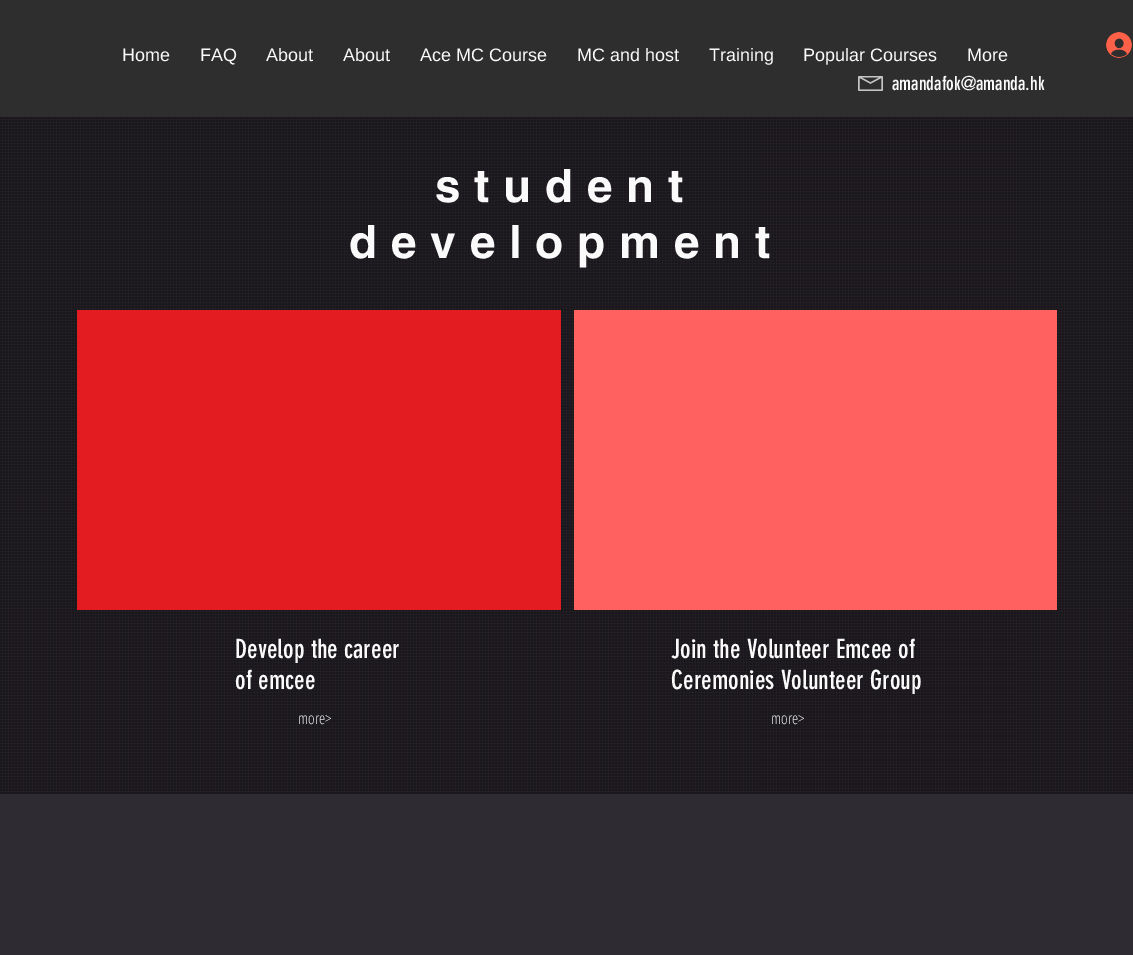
%!PS
<< /PageSize [1133 955] >> setpagedevice
/rgb { 3 { 255 div 3 1 roll } repeat setrgbcolor } def
/font { [ exch dup neg 0 0 3 -1 roll 0 0 ] selectfont } def
/text { moveto show } def
/picture { 5 dict begin { /h /w /y /x /name } { exch def } forall
  gsave x y translate w h scale
  w h 8 [w 0 0 h 0 0] name (r) file false 3 colorimage grestore end } def
0 955 translate 1 -1 scale
4 setmiterlimit
37 33 40 rgb
0 0 1133 955 rectfill
47 46 46 rgb
0 0 1133 117 rectfill
(img_01.rgb) 1106 32 26 26 picture
(img_02.rgb) 858 76 25 15 picture
(img_03.rgb) 0 117 1133 677 picture
226 28 33 rgb
77 310 484 300 rectfill
255 97 97 rgb
574 310 483 300 rectfill
47 43 50 rgb
0 794 1133 161 rectfill
/LiberationSans-Regular 18 font
250 250 250 rgb
(Home) 122 61 text
(FAQ) 200 61 text
(About) 266 61 text
(About) 343 61 text
(Ace MC Course) 420 61 text
(MC and host) 577 61 text
(Training) 709 61 text
(Popular Courses) 803 61 text
(More) 967 61 text
/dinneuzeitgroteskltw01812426-Regular 19 font
(amandafok@amanda.hk) 892 90 text
/helvetica-Bold 46 font
435 202 moveto 13.75 0 (student) ashow
349 258 moveto 13.75 0 (development) ashow
/dinneuzeitgroteskltw01812426-Regular 26 font
(Develop the career) 235 658 text
(of emcee) 235 689 text
(Join the Volunteer Emcee of) 671 658 text
(Ceremonies Volunteer Group) 671 689 text
/OpenSansCondensed-Light 16 font
232 232 232 rgb
(more>) 298 724 text
(more>) 771 724 text
showpage
